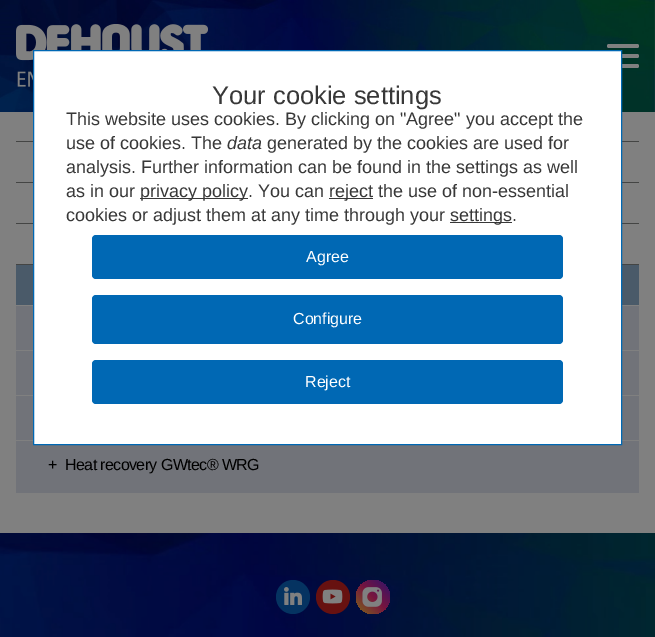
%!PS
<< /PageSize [655 637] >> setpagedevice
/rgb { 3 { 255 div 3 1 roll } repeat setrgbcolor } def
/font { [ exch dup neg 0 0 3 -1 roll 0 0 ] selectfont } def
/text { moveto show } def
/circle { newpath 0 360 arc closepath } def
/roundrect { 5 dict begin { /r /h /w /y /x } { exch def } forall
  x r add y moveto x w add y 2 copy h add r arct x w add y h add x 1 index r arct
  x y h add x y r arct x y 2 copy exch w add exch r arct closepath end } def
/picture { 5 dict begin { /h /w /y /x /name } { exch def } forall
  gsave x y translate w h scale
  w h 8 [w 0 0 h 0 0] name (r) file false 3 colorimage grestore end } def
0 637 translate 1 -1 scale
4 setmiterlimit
128 128 128 rgb
0 0 655 637 rectfill
(img_01.rgb) 0 0 655 112 picture
(img_02.rgb) 16 24 192 63 picture
607 54 32 4 2 roundrect fill
607 64 32 4 2 roundrect fill
68 69 68 rgb
16 141 623 1 rectfill
16 182 623 1 rectfill
16 223 623 1 rectfill
16 264 623 1 rectfill
74 90 105 rgb
16 265 623 40 rectfill
113 115 121 rgb
16 306 623 187 rectfill
128 128 128 rgb
16 350 623 1 rectfill
16 395 623 1 rectfill
16 440 623 1 rectfill
255 255 255 rgb
33.5 50.5 moveto 588 0 rlineto 0 394 rlineto -588 0 rlineto closepath gsave fill grestore
0 104 180 rgb
stroke
56 56 56 rgb
140 198 108 1 rectfill
329 198 44 1 rectfill
450 222 62 1 rectfill
0 104 180 rgb
92 235 471 44 4 roundrect fill
92 295 471 49 4 roundrect fill
92 360 471 44 4 roundrect fill
128 128 128 rgb
607 44 32 4 2 roundrect fill
(img_03.rgb) 0 533 655 104 picture
5 51 97 rgb
293 597 17 circle fill
(img_04.rgb) 284 587 18 18 picture
103 17 16 rgb
333 597 17 circle fill
(img_05.rgb) 322 589 21 15 picture
gsave 373 597 17 circle clip newpath
<< /ShadingType 2 /ColorSpace /DeviceRGB /Coords [356 614 390 580] /Extend [true true] /Function << /FunctionType 3 /Domain [0 1] /Functions [<< /FunctionType 2 /Domain [0 1] /C0 [0.49 0.404 0.102] /C1 [0.467 0.082 0.243] /N 1 >> << /FunctionType 2 /Domain [0 1] /C0 [0.467 0.082 0.243] /C1 [0.192 0.078 0.424] /N 1 >>] /Bounds [0.5] /Encode [0 1 0 1] >> >> shfill grestore
(img_06.rgb) 362 587 20 20 picture
/LiberationSans-Regular 25.5 font
56 56 56 rgb
(Your cookie settings) 212 104 text
/LiberationSans-Regular 18 font
(This website uses cookies. By clicking on "Agree" you accept the) 66 125 text
(use of cookies. The) 66 149 text
/LiberationSans-Italic 18 font
(data) 227 149 text
/LiberationSans-Regular 18 font
(generated by the cookies are used for) 267 149 text
(analysis. Further information can be found in the settings as well) 66 173 text
(as in our) 66 197 text
(privacy policy. You can) 140 197 text
(reject) 329 197 text
(the use of non-essential) 378 197 text
(cookies or adjust them at any time through your) 66 221 text
(settings.) 450 221 text
/LiberationSans-Regular 16 font
255 255 255 rgb
(Agree) 306 262 text
(Configure) 293 324 text
(Reject) 305 387 text
0 0 0 rgb
48 470 moveto -0.6 0 (+) ashow
65 470 moveto -0.6 0 (Heat recovery GWtec® WRG) ashow
showpage
